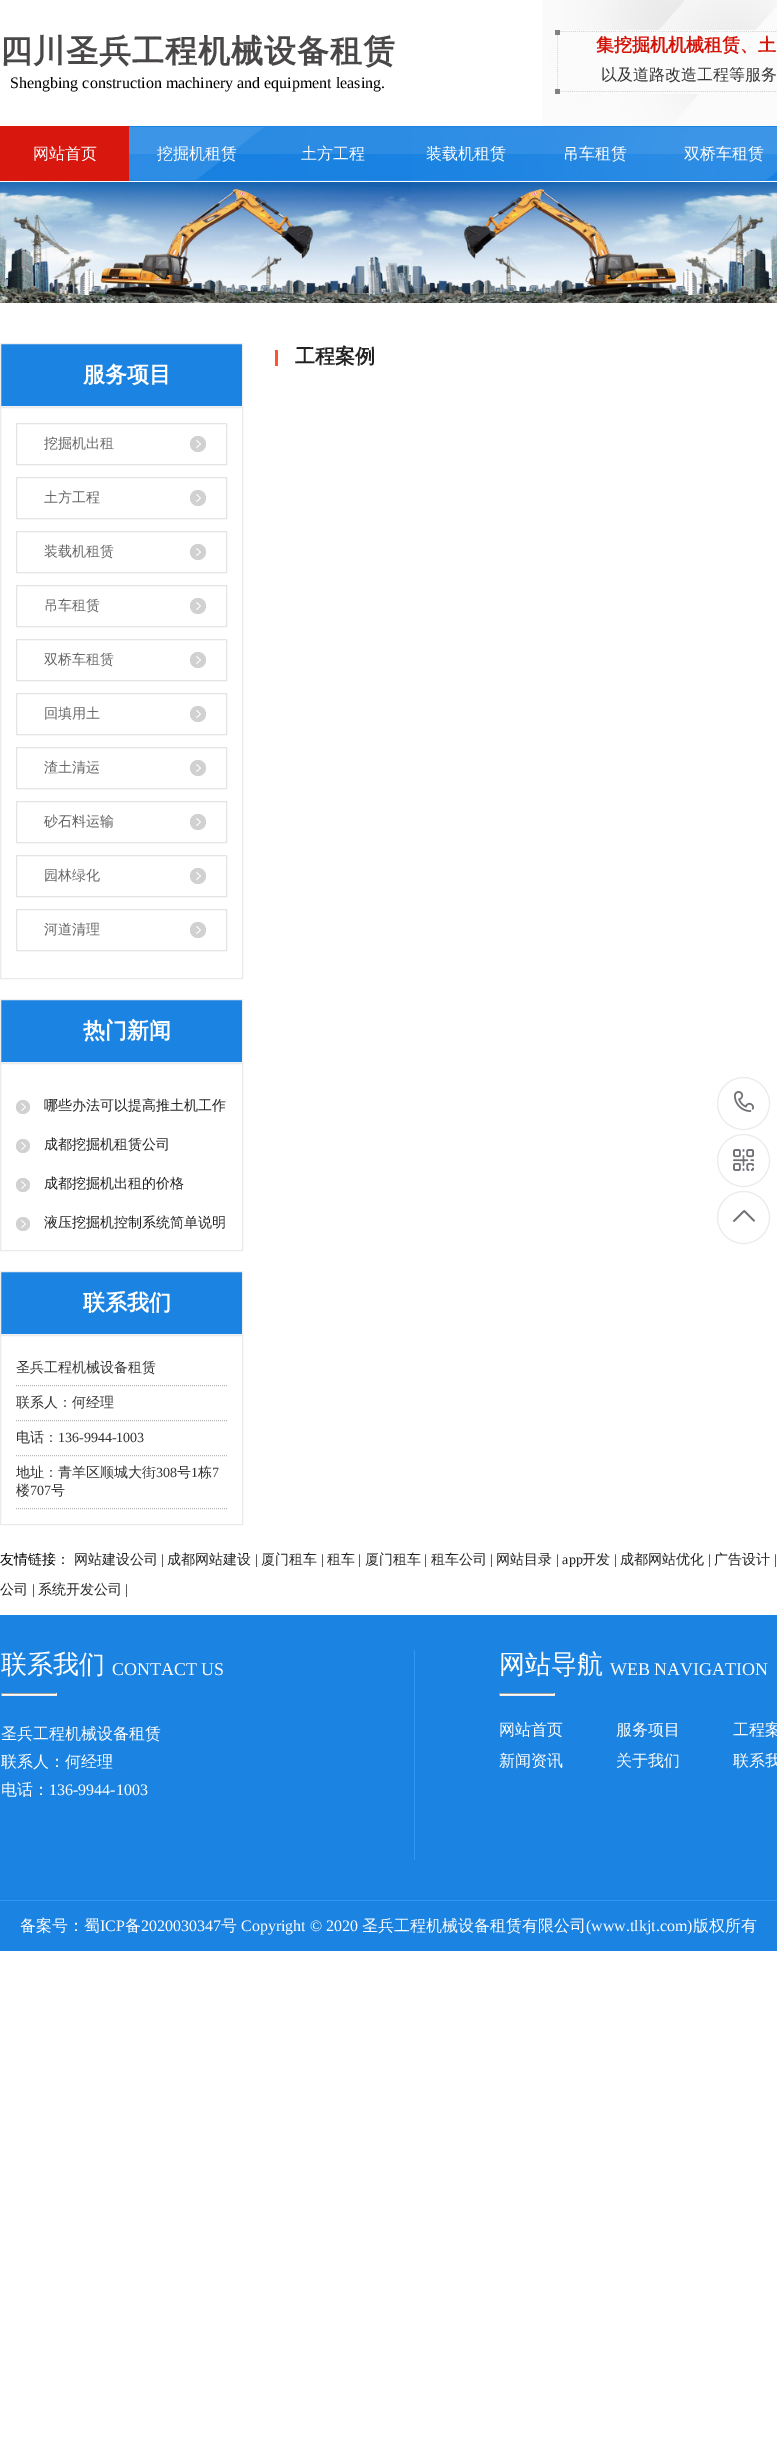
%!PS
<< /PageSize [777 2438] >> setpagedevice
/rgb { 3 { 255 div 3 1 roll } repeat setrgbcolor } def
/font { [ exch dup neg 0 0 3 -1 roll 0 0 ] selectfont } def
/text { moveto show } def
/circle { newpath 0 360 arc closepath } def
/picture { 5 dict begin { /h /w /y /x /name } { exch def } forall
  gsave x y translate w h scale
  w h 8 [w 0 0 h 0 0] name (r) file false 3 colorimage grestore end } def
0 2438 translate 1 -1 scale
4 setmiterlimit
255 255 255 rgb
0 0 777 2438 rectfill
(img_01.rgb) 542 0 235 126 picture
(img_02.rgb) 555 30 222 64 picture
(img_03.rgb) 129 126 648 55 picture
216 23 15 rgb
0 126 129 55 rectfill
(img_04.rgb) 0 182 777 121 picture
255 85 46 rgb
275 350 3 16 rectfill
27 131 226 rgb
0.5 343.5 moveto 242 0 rlineto 0 63 rlineto -242 0 rlineto closepath gsave fill grestore
239 239 239 rgb
stroke
235 235 235 rgb
0.5 407.5 242 571 rectstroke
228 228 228 rgb
16.5 423.5 210 41 rectstroke
209 209 209 rgb
198 444 8 circle fill
(img_05.rgb) 196 440 5 8 picture
228 228 228 rgb
16.5 477.5 210 41 rectstroke
209 209 209 rgb
198 498 8 circle fill
(img_05.rgb) 196 494 5 8 picture
228 228 228 rgb
16.5 531.5 210 41 rectstroke
209 209 209 rgb
198 552 8 circle fill
(img_05.rgb) 196 548 5 8 picture
228 228 228 rgb
16.5 585.5 210 41 rectstroke
209 209 209 rgb
198 606 8 circle fill
(img_05.rgb) 196 602 5 8 picture
228 228 228 rgb
16.5 639.5 210 41 rectstroke
209 209 209 rgb
198 660 8 circle fill
(img_05.rgb) 196 656 5 8 picture
228 228 228 rgb
16.5 693.5 210 41 rectstroke
209 209 209 rgb
198 714 8 circle fill
(img_05.rgb) 196 710 5 8 picture
228 228 228 rgb
16.5 747.5 210 41 rectstroke
209 209 209 rgb
198 768 8 circle fill
(img_05.rgb) 196 764 5 8 picture
228 228 228 rgb
16.5 801.5 210 41 rectstroke
209 209 209 rgb
198 822 8 circle fill
(img_05.rgb) 196 818 5 8 picture
228 228 228 rgb
16.5 855.5 210 41 rectstroke
209 209 209 rgb
198 876 8 circle fill
(img_05.rgb) 196 872 5 8 picture
228 228 228 rgb
16.5 909.5 210 41 rectstroke
209 209 209 rgb
198 930 8 circle fill
(img_05.rgb) 196 926 5 8 picture
27 131 226 rgb
0.5 999.5 moveto 242 0 rlineto 0 63 rlineto -242 0 rlineto closepath gsave fill grestore
239 239 239 rgb
stroke
235 235 235 rgb
0.5 1063.5 242 187 rectstroke
209 209 209 rgb
23 1107 7 circle fill
(img_05.rgb) 21 1103 5 8 picture
23 1146 7 circle fill
(img_05.rgb) 21 1142 5 8 picture
23 1185 7 circle fill
(img_05.rgb) 21 1181 5 8 picture
23 1224 7 circle fill
(img_05.rgb) 21 1220 5 8 picture
27 131 226 rgb
0.5 1271.5 moveto 242 0 rlineto 0 63 rlineto -242 0 rlineto closepath gsave fill grestore
239 239 239 rgb
stroke
235 235 235 rgb
0.5 1335.5 242 189 rectstroke
184 184 184 rgb
[1 1] 0 setdash
16 1385.5 moveto 211 0 rlineto stroke
16 1420.5 moveto 211 0 rlineto stroke
16 1455.5 moveto 211 0 rlineto stroke
16 1508.5 moveto 211 0 rlineto stroke
235 235 235 rgb
[] 0 setdash
743.5 1103.5 26 circle stroke
(img_06.rgb) 734 1091 20 21 picture
743.5 1160.5 26 circle stroke
(img_07.rgb) 733 1149 21 22 picture
743.5 1217.5 26 circle stroke
(img_08.rgb) 733 1210 22 12 picture
27 131 226 rgb
0 1615 777 336 rectfill
46 152 249 rgb
414 1650 1 210 rectfill
255 255 255 rgb
1 1694 56 1 rectfill
159 159 159 rgb
1 1693 56 1 rectfill
238 238 238 rgb
56 1693 1 3 rectfill
1 1695 56 1 rectfill
159 159 159 rgb
1 1693 1 3 rectfill
255 255 255 rgb
499 1694 56 1 rectfill
159 159 159 rgb
499 1693 56 1 rectfill
238 238 238 rgb
554 1693 1 3 rectfill
499 1695 56 1 rectfill
159 159 159 rgb
499 1693 1 3 rectfill
46 152 249 rgb
0 1900 777 1 rectfill
/WenQuanYiZenHei-Bold 32 font
73 71 71 rgb
0 62 moveto 1 0 (四川圣兵工程机械设备租赁) ashow
/LiberationSerif-Regular 16 font
0 0 0 rgb
(Shengbing construction machinery and equipment leasing.) 10 88 text
/WenQuanYiZenHei-Bold 18 font
212 21 10 rgb
(集挖掘机机械租赁、土) 596 51 text
/WenQuanYiZenHei-Medium 16 font
51 51 51 rgb
(以及道路改造工程等服务) 601 80 text
255 255 255 rgb
(网站首页) 33 159 text
(挖掘机租赁) 157 159 text
(土方工程) 301 159 text
(装载机租赁) 426 159 text
(吊车租赁) 563 159 text
(双桥车租赁) 684 159 text
/WenQuanYiZenHei-Bold 20 font
34 34 34 rgb
(工程案例) 295 363 text
/WenQuanYiZenHei-Bold 22 font
255 255 255 rgb
(服务项目) 83 382 text
/WenQuanYiZenHei-Medium 14 font
102 102 102 rgb
(挖掘机出租) 44 448 text
(土方工程) 44 502 text
(装载机租赁) 44 556 text
(吊车租赁) 44 610 text
(双桥车租赁) 44 664 text
(回填用土) 44 718 text
(渣土清运) 44 772 text
(砂石料运输) 44 826 text
(园林绿化) 44 880 text
(河道清理) 44 934 text
/WenQuanYiZenHei-Bold 22 font
255 255 255 rgb
(热门新闻) 83 1038 text
/WenQuanYiZenHei-Medium 14 font
34 34 34 rgb
(哪些办法可以提高推土机工作) 44 1110 text
(成都挖掘机租赁公司) 44 1149 text
(成都挖掘机出租的价格) 44 1188 text
(液压挖掘机控制系统简单说明) 44 1227 text
/WenQuanYiZenHei-Bold 22 font
255 255 255 rgb
(联系我们) 83 1310 text
/WenQuanYiZenHei-Medium 14 font
51 51 51 rgb
(圣兵工程机械设备租赁) 16 1372 text
(联系人：何经理) 16 1407 text
(电话：) 16 1442 text
/LiberationSerif-Regular 14 font
(136-9944-1003) 58 1442 text
/WenQuanYiZenHei-Medium 14 font
(地址：青羊区顺城大街) 16 1477 text
/LiberationSerif-Regular 14 font
(308) 156 1477 text
/WenQuanYiZenHei-Medium 14 font
(号) 177 1477 text
/LiberationSerif-Regular 14 font
(1) 191 1477 text
/WenQuanYiZenHei-Medium 14 font
(栋) 198 1477 text
/LiberationSerif-Regular 14 font
(7) 212 1477 text
/WenQuanYiZenHei-Medium 14 font
(楼) 16 1495 text
/LiberationSerif-Regular 14 font
(707) 30 1495 text
/WenQuanYiZenHei-Medium 14 font
(号) 51 1495 text
0 0 0 rgb
(友情链接：) 0 1564 text
34 34 34 rgb
(网站建设公司) 74 1564 text
/LiberationSerif-Regular 14 font
(|) 161 1564 text
/WenQuanYiZenHei-Medium 14 font
(成都网站建设) 167 1564 text
/LiberationSerif-Regular 14 font
(|) 255 1564 text
/WenQuanYiZenHei-Medium 14 font
(厦门租车) 261 1564 text
/LiberationSerif-Regular 14 font
(|) 321 1564 text
/WenQuanYiZenHei-Medium 14 font
(租车) 327 1564 text
/LiberationSerif-Regular 14 font
(|) 358 1564 text
/WenQuanYiZenHei-Medium 14 font
(厦门租车) 365 1564 text
/LiberationSerif-Regular 14 font
(|) 424 1564 text
/WenQuanYiZenHei-Medium 14 font
(租车公司) 431 1564 text
/LiberationSerif-Regular 14 font
(|) 490 1564 text
/WenQuanYiZenHei-Medium 14 font
(网站目录) 496 1564 text
/LiberationSerif-Regular 14 font
(| app) 556 1564 text
/WenQuanYiZenHei-Medium 14 font
(开发) 582 1564 text
/LiberationSerif-Regular 14 font
(|) 614 1564 text
/WenQuanYiZenHei-Medium 14 font
(成都网站优化) 620 1564 text
/LiberationSerif-Regular 14 font
(|) 708 1564 text
/WenQuanYiZenHei-Medium 14 font
(广告设计) 714 1564 text
/LiberationSerif-Regular 14 font
(|) 774 1564 text
/WenQuanYiZenHei-Medium 14 font
(公司) 0 1594 text
/LiberationSerif-Regular 14 font
(|) 32 1594 text
/WenQuanYiZenHei-Medium 14 font
(系统开发公司) 38 1594 text
/LiberationSerif-Regular 14 font
(|) 125 1594 text
/WenQuanYiZenHei-Medium 26 font
255 255 255 rgb
(联系我们) 1 1673 text
/LiberationSerif-Regular 18 font
(CONTACT US) 112 1675 text
/WenQuanYiZenHei-Medium 16 font
(圣兵工程机械设备租赁) 1 1739 text
(联系人：何经理) 1 1767 text
(电话：) 1 1795 text
/LiberationSerif-Regular 16 font
(136-9944-1003) 49 1795 text
/WenQuanYiZenHei-Medium 26 font
(网站导航) 499 1673 text
/LiberationSerif-Regular 18 font
(WEB NAVIGATION) 610 1675 text
/WenQuanYiZenHei-Medium 16 font
(网站首页) 499 1735 text
(服务项目) 616 1735 text
(工程案) 733 1735 text
(新闻资讯) 499 1766 text
(关于我们) 616 1766 text
(联系我) 733 1766 text
(备案号：蜀) 20 1931 text
/LiberationSerif-Regular 16 font
(ICP) 100 1931 text
/WenQuanYiZenHei-Medium 16 font
(备) 125 1931 text
/LiberationSerif-Regular 16 font
(2020030347) 141 1931 text
/WenQuanYiZenHei-Medium 16 font
(号) 221 1931 text
/LiberationSerif-Regular 16 font
(Copyright © 2020) 241 1931 text
/WenQuanYiZenHei-Medium 16 font
(圣兵工程机械设备租赁有限公司) 362 1931 text
/LiberationSerif-Regular 16 font
(\(www.tlkjt.com\)) 586 1931 text
/WenQuanYiZenHei-Medium 16 font
(版权所有) 693 1931 text
showpage
